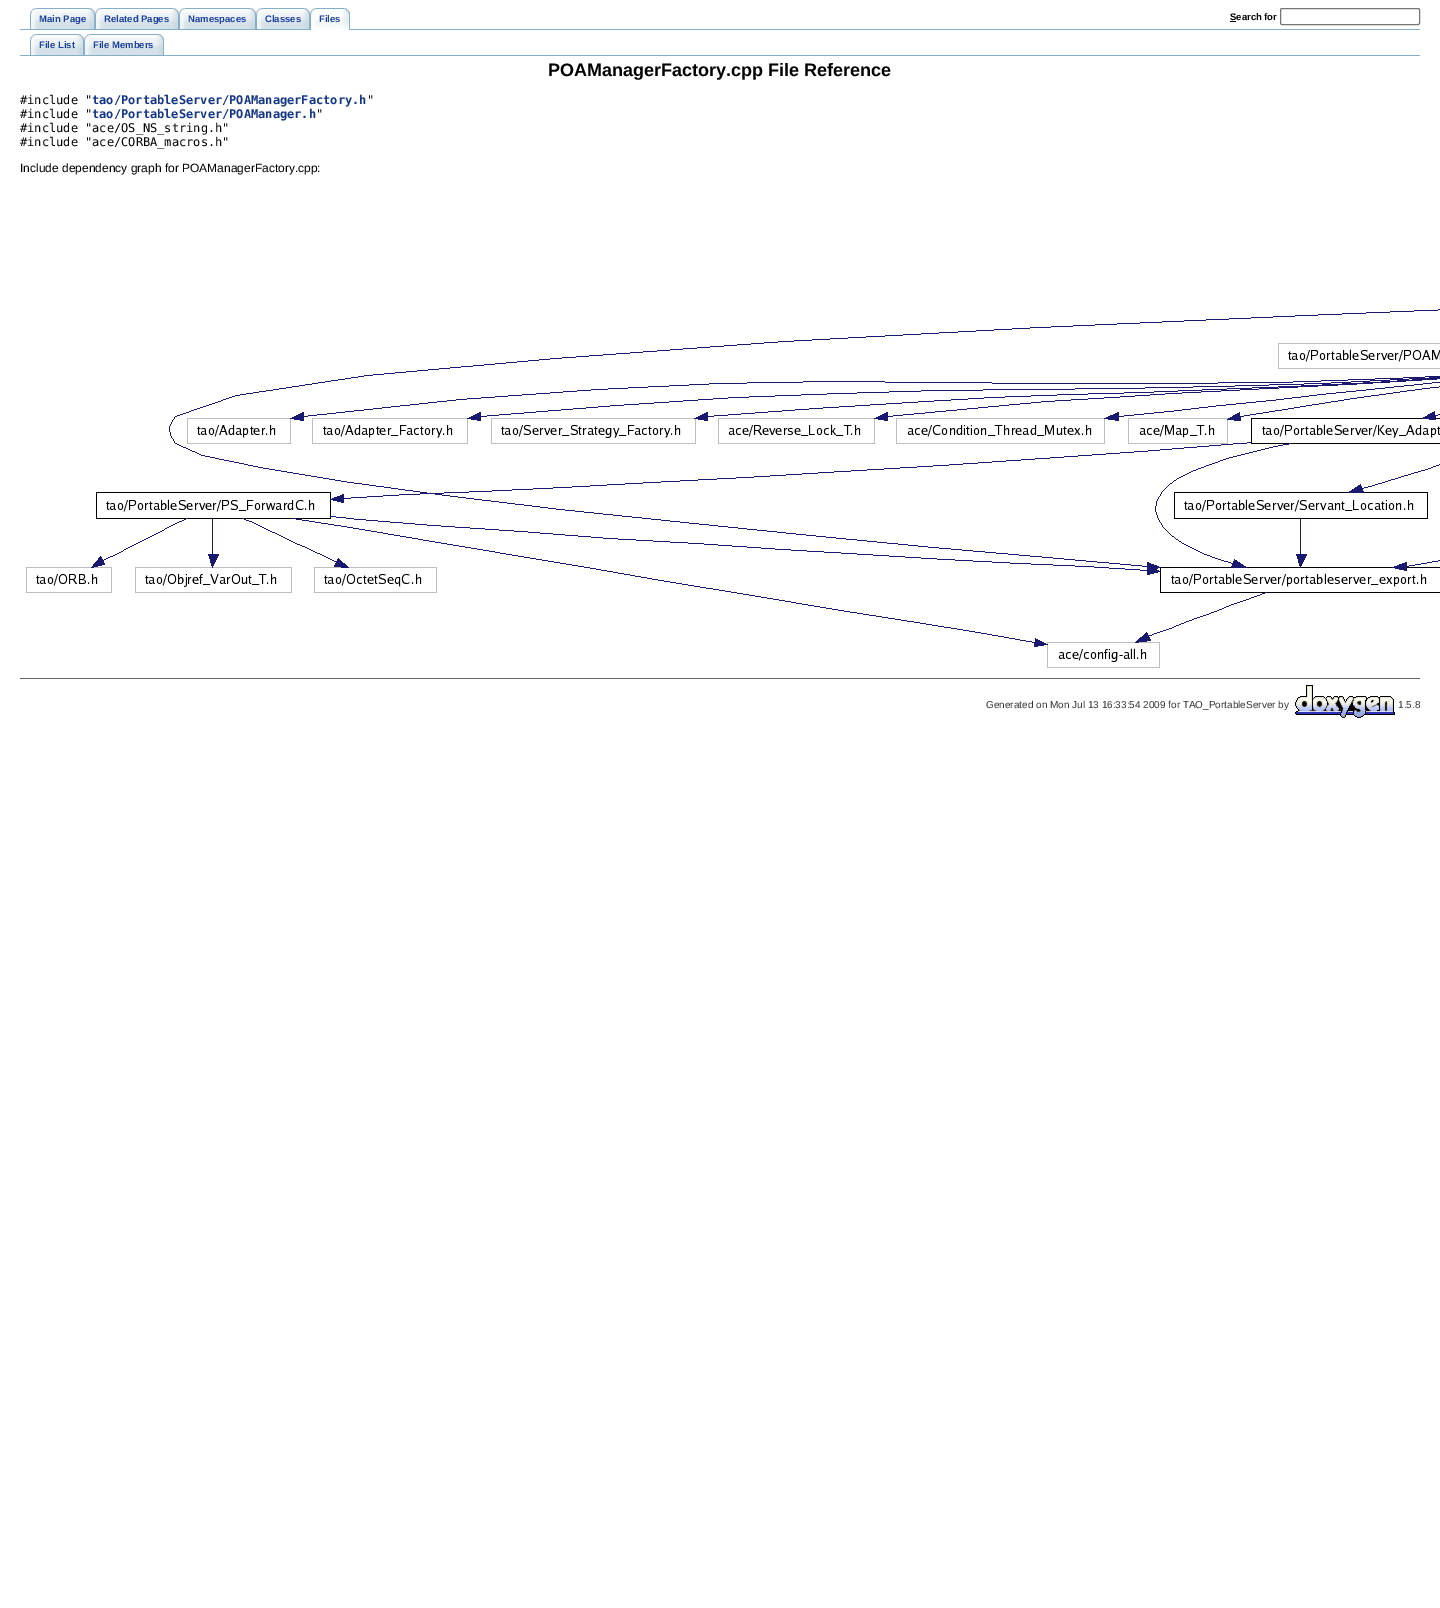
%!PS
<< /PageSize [1440 1608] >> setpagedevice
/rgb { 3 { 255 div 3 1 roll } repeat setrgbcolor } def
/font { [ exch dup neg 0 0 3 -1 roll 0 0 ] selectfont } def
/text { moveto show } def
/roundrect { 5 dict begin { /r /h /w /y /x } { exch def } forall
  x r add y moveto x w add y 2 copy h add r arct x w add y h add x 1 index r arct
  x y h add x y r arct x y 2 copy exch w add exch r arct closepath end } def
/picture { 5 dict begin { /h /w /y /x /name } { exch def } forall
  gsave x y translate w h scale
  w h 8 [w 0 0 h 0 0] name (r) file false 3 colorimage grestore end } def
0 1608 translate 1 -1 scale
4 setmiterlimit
255 255 255 rgb
0 0 1440 1608 rectfill
132 176 199 rgb
20 29 1400 1 rectfill
(img_01.rgb) 39 8 56 21 picture
(img_02.rgb) 30 8 9 21 picture
(img_03.rgb) 104 8 75 21 picture
(img_02.rgb) 95 8 9 21 picture
(img_04.rgb) 188 8 68 21 picture
(img_02.rgb) 179 8 9 21 picture
(img_05.rgb) 265 8 45 21 picture
(img_02.rgb) 256 8 9 21 picture
(img_06.rgb) 317 8 33 22 picture
(img_07.rgb) 310 8 7 22 picture
0 0 0 rgb
1230 21 6 1 rectfill
118 118 118 rgb
1280.5 8.5 139 16 1.5 roundrect stroke
132 176 199 rgb
20 55 1400 1 rectfill
(img_05.rgb) 39 34 45 21 picture
(img_02.rgb) 30 34 9 21 picture
(img_08.rgb) 93 34 71 21 picture
(img_02.rgb) 84 34 9 21 picture
(img_09.rgb) 26 309 1414 359 picture
102 102 102 rgb
20 678 1400 1 rectfill
(img_10.rgb) 1295 685 100 33 picture
/LiberationSans-Bold 9.5 font
26 65 157 rgb
(Main Page) 39 22 text
(Related Pages) 104 22 text
(Namespaces) 188 22 text
(Classes) 265 22 text
(Files) 319 22 text
0 0 0 rgb
(Search for) 1230 20 text
26 65 157 rgb
(File List) 39 48 text
(File Members) 93 48 text
/LiberationSans-Bold 18 font
0 0 0 rgb
(POAManagerFactory.cpp File Reference) 548 76 text
/DejaVuSansMono-Regular 12 font
(#include ") 20 104 text
/DejaVuSansMono-Bold 12 font
21 55 136 rgb
(tao/PortableServer/POAManagerFactory.h) 92 104 text
/DejaVuSansMono-Regular 12 font
0 0 0 rgb
(") 367 104 text
(#include ") 20 118 text
/DejaVuSansMono-Bold 12 font
21 55 136 rgb
(tao/PortableServer/POAManager.h) 92 118 text
/DejaVuSansMono-Regular 12 font
0 0 0 rgb
(") 316 118 text
(#include "ace/OS_NS_string.h") 20 132 text
(#include "ace/CORBA_macros.h") 20 146 text
/LiberationSans-Regular 12 font
(Include dependency graph for POAManagerFactory.cpp:) 20 172 text
/LiberationSans-Regular 10 font
51 51 51 rgb
(Generated on Mon Jul 13 16:33:54 2009 for TAO_PortableServer by) 986 708 text
(1.5.8) 1398 708 text
showpage
